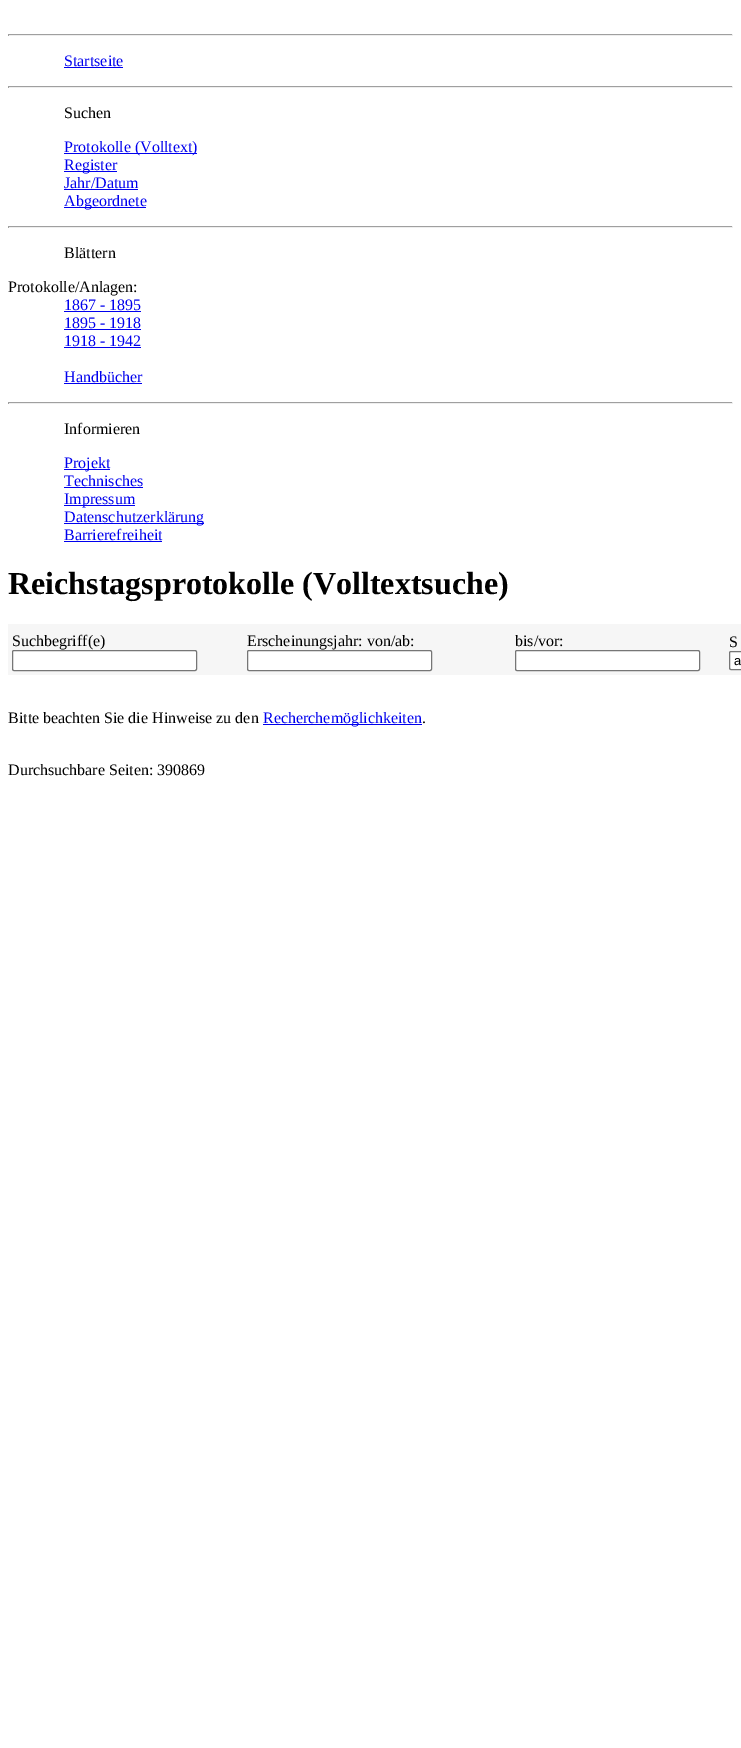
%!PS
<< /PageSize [741 1748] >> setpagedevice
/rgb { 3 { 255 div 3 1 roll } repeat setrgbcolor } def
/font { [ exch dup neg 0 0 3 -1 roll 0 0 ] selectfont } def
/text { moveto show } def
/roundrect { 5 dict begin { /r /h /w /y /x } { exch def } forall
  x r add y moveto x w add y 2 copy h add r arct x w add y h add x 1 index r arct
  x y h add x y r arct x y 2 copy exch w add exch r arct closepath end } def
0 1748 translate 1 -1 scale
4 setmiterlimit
255 255 255 rgb
0 0 741 1748 rectfill
159 159 159 rgb
8 34 725 1 rectfill
238 238 238 rgb
732 34 1 2 rectfill
8 35 725 1 rectfill
159 159 159 rgb
8 34 1 2 rectfill
0 0 238 rgb
64 67 59 1 rectfill
159 159 159 rgb
8 86 725 1 rectfill
238 238 238 rgb
732 86 1 2 rectfill
8 87 725 1 rectfill
159 159 159 rgb
8 86 1 2 rectfill
0 0 238 rgb
64 153 133 1 rectfill
64 171 53 1 rectfill
64 189 74 1 rectfill
64 207 82 1 rectfill
159 159 159 rgb
8 226 725 1 rectfill
238 238 238 rgb
732 226 1 2 rectfill
8 227 725 1 rectfill
159 159 159 rgb
8 226 1 2 rectfill
0 0 238 rgb
64 311 77 1 rectfill
64 329 77 1 rectfill
64 347 77 1 rectfill
64 383 78 1 rectfill
159 159 159 rgb
8 402 725 1 rectfill
238 238 238 rgb
732 402 1 2 rectfill
8 403 725 1 rectfill
159 159 159 rgb
8 402 1 2 rectfill
0 0 238 rgb
64 469 46 1 rectfill
64 487 79 1 rectfill
64 505 71 1 rectfill
64 523 140 1 rectfill
64 541 98 1 rectfill
246 246 246 rgb
8 624 733 51 rectfill
255 255 255 rgb
12.5 650.5 184 20 1.5 roundrect gsave fill grestore
118 118 118 rgb
stroke
255 255 255 rgb
247.5 650.5 184 20 1.5 roundrect gsave fill grestore
118 118 118 rgb
stroke
255 255 255 rgb
515.5 650.5 184 20 1.5 roundrect gsave fill grestore
118 118 118 rgb
stroke
255 255 255 rgb
729.5 651.5 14 18 1.5 roundrect gsave fill grestore
118 118 118 rgb
stroke
0 0 238 rgb
263 724 159 1 rectfill
/LiberationSerif-Regular 16 font
(Startseite) 64 66 text
0 0 0 rgb
(Suchen) 64 118 text
0 0 238 rgb
(Protokolle \(Volltext\)) 64 152 text
(Register) 64 170 text
(Jahr/Datum) 64 188 text
(Abgeordnete) 64 206 text
0 0 0 rgb
(Blättern) 64 258 text
(Protokolle/Anlagen:) 8 292 text
0 0 238 rgb
(1867 - 1895) 64 310 text
(1895 - 1918) 64 328 text
(1918 - 1942) 64 346 text
(Handbücher) 64 382 text
0 0 0 rgb
(Informieren) 64 434 text
0 0 238 rgb
(Projekt) 64 468 text
(Technisches) 64 486 text
(Impressum) 64 504 text
(Datenschutzerklärung) 64 522 text
(Barrierefreiheit) 64 540 text
/LiberationSerif-Bold 32 font
0 0 0 rgb
(Reichstagsprotokolle \(Volltextsuche\)) 8 594 text
/LiberationSerif-Regular 16 font
(Suchbegriff\(e\)) 12 646 text
(Erscheinungsjahr: von/ab:) 247 646 text
(bis/vor:) 515 646 text
(S) 729 647 text
/LiberationSans-Regular 13 font
(a) 734 665 text
/LiberationSerif-Regular 16 font
(Bitte beachten Sie die Hinweise zu den) 8 723 text
0 0 238 rgb
(Recherchemöglichkeiten) 263 723 text
0 0 0 rgb
(.) 422 723 text
(Durchsuchbare Seiten: 390869) 8 775 text
showpage
